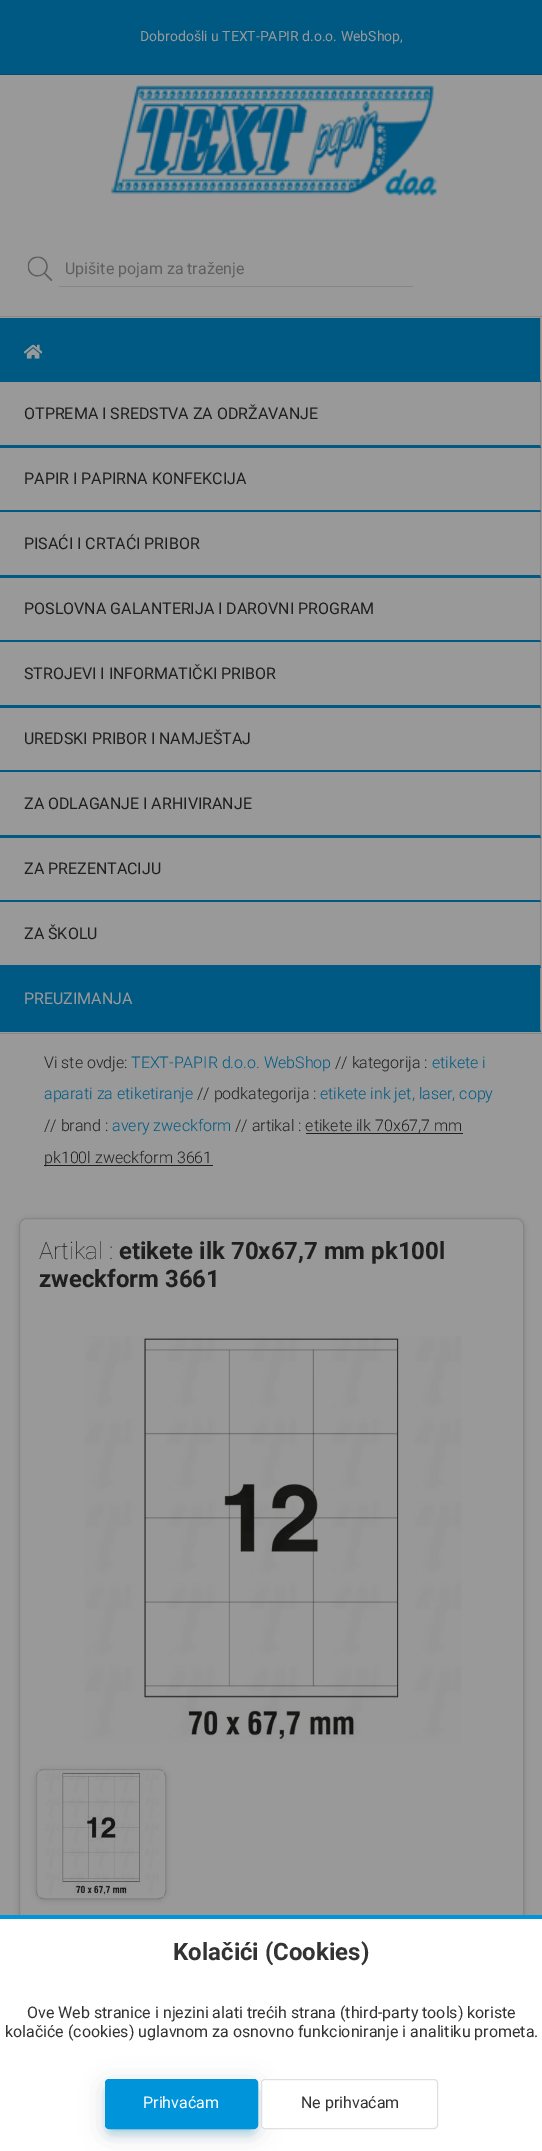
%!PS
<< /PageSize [542 2151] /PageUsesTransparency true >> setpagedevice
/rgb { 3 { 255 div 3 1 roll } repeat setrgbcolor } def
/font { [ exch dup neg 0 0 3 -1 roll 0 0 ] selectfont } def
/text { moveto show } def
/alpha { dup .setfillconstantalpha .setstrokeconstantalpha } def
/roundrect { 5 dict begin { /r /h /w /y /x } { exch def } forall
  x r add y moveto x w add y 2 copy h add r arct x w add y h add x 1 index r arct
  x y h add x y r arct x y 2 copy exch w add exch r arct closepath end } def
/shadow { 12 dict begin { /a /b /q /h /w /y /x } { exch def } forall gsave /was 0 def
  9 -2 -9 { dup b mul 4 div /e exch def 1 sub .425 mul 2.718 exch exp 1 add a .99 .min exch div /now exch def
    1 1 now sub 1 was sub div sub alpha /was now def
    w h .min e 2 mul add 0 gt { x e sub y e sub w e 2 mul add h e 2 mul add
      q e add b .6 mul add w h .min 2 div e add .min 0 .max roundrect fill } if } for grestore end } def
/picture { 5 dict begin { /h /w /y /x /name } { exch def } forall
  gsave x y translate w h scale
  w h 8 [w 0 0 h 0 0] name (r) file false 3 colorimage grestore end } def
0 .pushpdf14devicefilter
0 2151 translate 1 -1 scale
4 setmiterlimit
153 153 153 rgb
0 0 542 2151 rectfill
0 89 131 rgb
0 0 542 74 rectfill
0 79 115 rgb
0 74 542 1 rectfill
(img_01.rgb) 111 85 326 111 picture
(img_02.rgb) 27 256 26 25 picture
134 134 134 rgb
59 286 354 1 rectfill
0 316 542 1 rectfill
0 1033 542 1 rectfill
541 318 moveto 0 64 rlineto -1 -2 rlineto 0 -62 rlineto closepath fill
0 89 131 rgb
541 382 moveto -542 0 rlineto 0 -2 rlineto 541 0 rlineto closepath fill
0 318 540 62 rectfill
(img_03.rgb) 24 344 19 15 picture
134 134 134 rgb
541 382 moveto 0 66 rlineto -1 -3 rlineto 0 -63 rlineto closepath fill
0 89 131 rgb
541 448 moveto -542 0 rlineto 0 -3 rlineto 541 0 rlineto closepath fill
134 134 134 rgb
541 448 moveto 0 64 rlineto -1 -2 rlineto 0 -62 rlineto closepath fill
0 89 131 rgb
541 512 moveto -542 0 rlineto 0 -2 rlineto 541 0 rlineto closepath fill
134 134 134 rgb
541 512 moveto 0 66 rlineto -1 -3 rlineto 0 -63 rlineto closepath fill
0 89 131 rgb
541 578 moveto -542 0 rlineto 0 -3 rlineto 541 0 rlineto closepath fill
134 134 134 rgb
541 578 moveto 0 64 rlineto -1 -2 rlineto 0 -62 rlineto closepath fill
0 89 131 rgb
541 642 moveto -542 0 rlineto 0 -2 rlineto 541 0 rlineto closepath fill
134 134 134 rgb
541 642 moveto 0 66 rlineto -1 -3 rlineto 0 -63 rlineto closepath fill
0 89 131 rgb
541 708 moveto -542 0 rlineto 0 -3 rlineto 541 0 rlineto closepath fill
134 134 134 rgb
541 708 moveto 0 64 rlineto -1 -2 rlineto 0 -62 rlineto closepath fill
0 89 131 rgb
541 772 moveto -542 0 rlineto 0 -2 rlineto 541 0 rlineto closepath fill
134 134 134 rgb
541 772 moveto 0 66 rlineto -1 -3 rlineto 0 -63 rlineto closepath fill
0 89 131 rgb
541 838 moveto -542 0 rlineto 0 -3 rlineto 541 0 rlineto closepath fill
134 134 134 rgb
541 838 moveto 0 64 rlineto -1 -2 rlineto 0 -62 rlineto closepath fill
0 89 131 rgb
541 902 moveto -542 0 rlineto 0 -2 rlineto 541 0 rlineto closepath fill
134 134 134 rgb
541 902 moveto 0 66 rlineto -1 -3 rlineto 0 -63 rlineto closepath fill
0 89 131 rgb
541 968 moveto -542 0 rlineto 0 -3 rlineto 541 0 rlineto closepath fill
134 134 134 rgb
541 968 moveto 0 64 rlineto -1 -2 rlineto 0 -62 rlineto closepath fill
0 89 131 rgb
541 1032 moveto -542 0 rlineto 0 -2 rlineto 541 0 rlineto closepath fill
0 968 540 62 rectfill
31 31 31 rgb
306 1133 157 1 rectfill
44 1165 169 1 rectfill
0 0 0 rgb
19 1219 505 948 8 2.5 0.14 shadow
153 153 153 rgb
19 1218 505 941 8 roundrect fill
0.12 alpha
0 0 0 rgb
19.5 1218.5 504 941 7.5 roundrect stroke
1 alpha
(img_04.rgb) 84 1336 378 407 picture
gsave
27 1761 moveto 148 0 rlineto 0 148 rlineto -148 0 rlineto closepath 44 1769 moveto 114 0 rlineto 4.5 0 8 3.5 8 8 rcurveto 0 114 rlineto 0 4.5 -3.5 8 -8 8 rcurveto -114 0 rlineto -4.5 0 -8 -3.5 -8 -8 rcurveto 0 -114 rlineto 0 -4.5 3.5 -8 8 -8 rcurveto closepath eoclip newpath
36 1770 130 130 8 2.5 0.14 shadow
grestore
0.12 alpha
36.5 1769.5 129 129 7.5 roundrect stroke
1 alpha
(img_05.rgb) 38 1771 126 126 picture
255 255 255 rgb
0 1919 542 232 rectfill
0 149 218 rgb
0 1915 542 4 rectfill
111 2094 140 37 0 6 0.4 shadow
0 0 0 rgb
105 2084 153 50 4 12.5 0.14 shadow
0 149 218 rgb
105.5 2079.5 152 49 3.5 roundrect gsave fill grestore
stroke
255 255 255 rgb
261 2079 177 50 4 roundrect fill
0.12 alpha
0 0 0 rgb
261.5 2079.5 176 49 3.5 roundrect stroke
/Roboto-Regular 14 font
1 alpha
153 153 153 rgb
(Dobrodošli u TEXT-PAPIR d.o.o. WebShop,) 140 41 text
/Roboto-Regular 16 font
95 95 95 rgb
(Upišite pojam za traženje) 65 274 text
31 31 31 rgb
(OTPREMA I SREDSTVA ZA ODRŽAVANJE) 24 419 text
(PAPIR I PAPIRNA KONFEKCIJA) 24 484 text
(PISAĆI I CRTAĆI PRIBOR) 24 549 text
(POSLOVNA GALANTERIJA I DAROVNI PROGRAM) 24 614 text
(STROJEVI I INFORMATIČKI PRIBOR) 24 679 text
(UREDSKI PRIBOR I NAMJEŠTAJ) 24 744 text
(ZA ODLAGANJE I ARHIVIRANJE) 24 809 text
(ZA PREZENTACIJU) 24 874 text
(ZA ŠKOLU) 24 939 text
153 153 153 rgb
(PREUZIMANJA) 24 1004 text
/Roboto-Light 16 font
31 31 31 rgb
(Vi ste ovdje:) 44 1068 text
0 89 131 rgb
(TEXT-PAPIR d.o.o. WebShop) 131 1068 text
31 31 31 rgb
(// kategorija :) 335 1068 text
0 89 131 rgb
(etikete i) 432 1068 text
(aparati za etiketiranje) 44 1099 text
31 31 31 rgb
(// podkategorija :) 197 1099 text
0 89 131 rgb
(etikete ink jet, laser, copy) 320 1099 text
31 31 31 rgb
(// brand :) 44 1131 text
0 89 131 rgb
(avery zweckform) 112 1131 text
31 31 31 rgb
(// artikal : etikete ilk) 235 1131 text
(70x67,7 mm) 375 1131 text
(pk100l zweckform 3661) 44 1163 text
/Roboto-Thin 24 font
(Artikal :) 39 1259 text
/Roboto-Bold 24 font
(etikete ilk 70x67,7 mm pk100l) 119 1259 text
(zweckform 3661) 39 1287 text
51 51 51 rgb
(Kolačići \(Cookies\)) 173 1960 text
/Roboto-Regular 16 font
(Ove Web stranice i njezini alati trećih strana \(third-party tools\) koriste) 27 2018 text
(kolačiće \(cookies\) uglavnom za osnovno funkcioniranje i analitiku prometa.) 5 2037 text
255 255 255 rgb
(Prihvaćam) 143 2108 text
51 51 51 rgb
(Ne prihvaćam) 301 2108 text
.poppdf14devicefilter showpage
